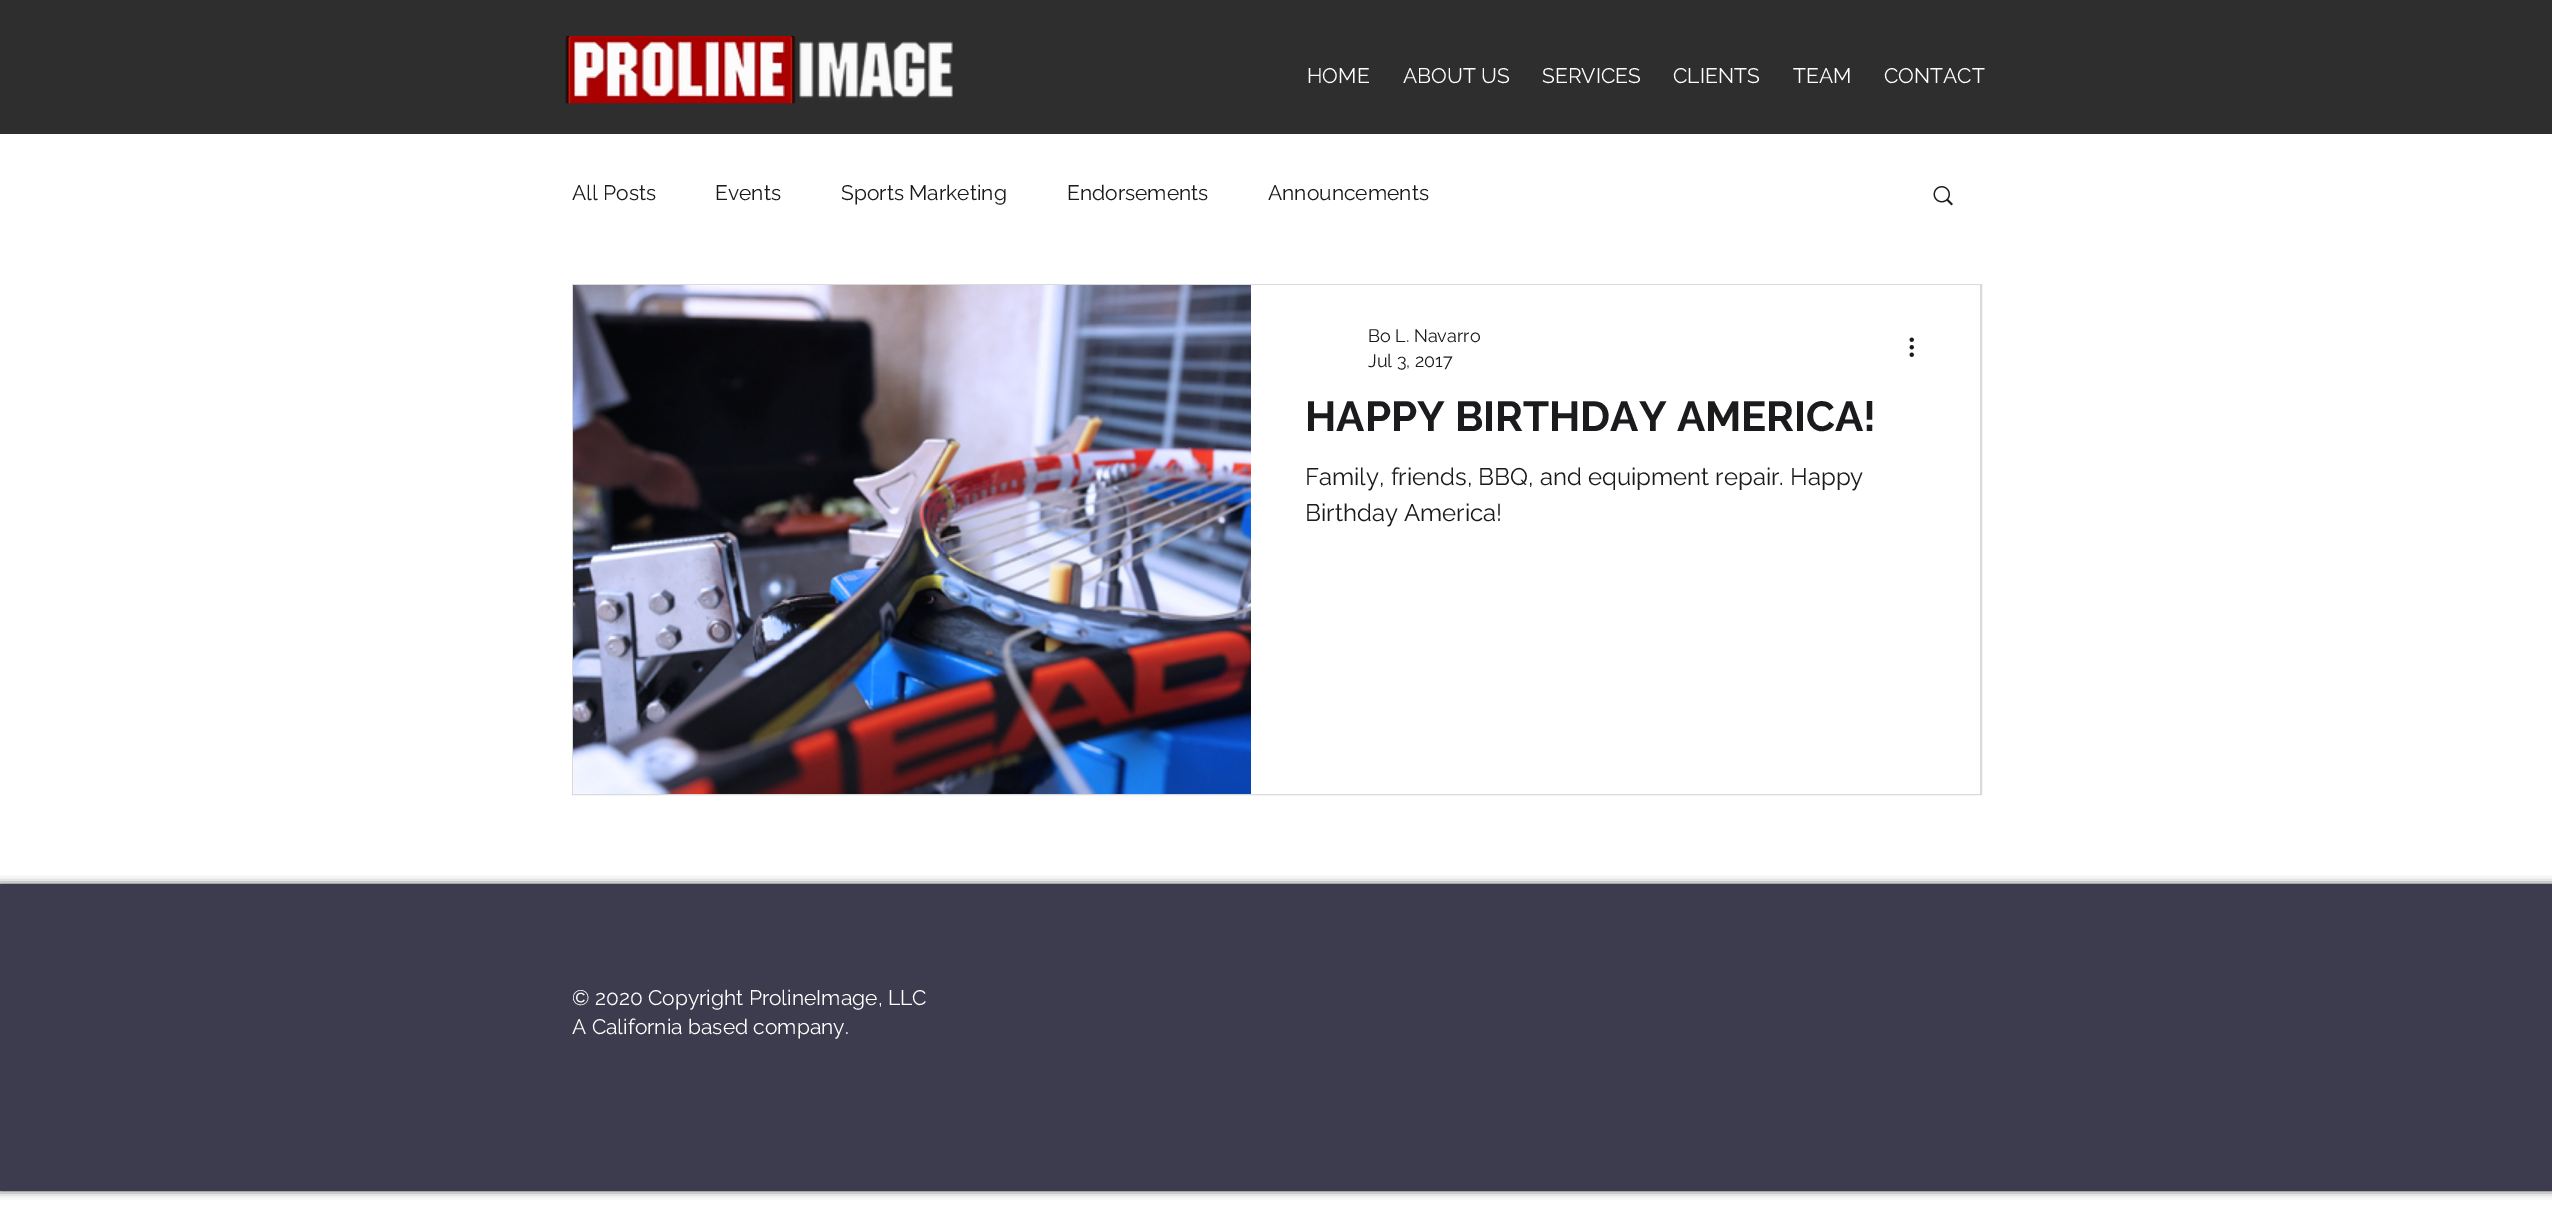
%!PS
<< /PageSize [2552 1230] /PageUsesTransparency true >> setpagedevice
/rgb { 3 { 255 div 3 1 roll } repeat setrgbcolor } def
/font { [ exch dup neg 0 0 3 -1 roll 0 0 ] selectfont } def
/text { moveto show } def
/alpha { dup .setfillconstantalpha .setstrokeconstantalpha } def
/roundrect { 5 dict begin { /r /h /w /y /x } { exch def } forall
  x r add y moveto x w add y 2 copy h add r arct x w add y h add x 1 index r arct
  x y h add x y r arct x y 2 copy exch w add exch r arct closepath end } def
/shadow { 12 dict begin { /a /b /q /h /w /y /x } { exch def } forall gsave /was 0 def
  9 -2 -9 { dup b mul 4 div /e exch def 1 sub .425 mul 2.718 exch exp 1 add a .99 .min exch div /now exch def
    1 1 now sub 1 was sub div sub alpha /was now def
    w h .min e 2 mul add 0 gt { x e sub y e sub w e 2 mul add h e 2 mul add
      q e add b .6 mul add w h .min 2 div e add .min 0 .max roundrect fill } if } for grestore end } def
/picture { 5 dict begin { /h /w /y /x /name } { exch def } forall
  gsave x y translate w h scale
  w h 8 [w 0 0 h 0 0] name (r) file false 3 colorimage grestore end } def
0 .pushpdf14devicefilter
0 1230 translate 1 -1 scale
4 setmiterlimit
255 255 255 rgb
0 0 2552 1230 rectfill
47 46 46 rgb
0 0 2552 134 rectfill
(img_01.rgb) 565 36 388 68 picture
(img_02.rgb) 1933 186 20 20 picture
218 218 218 rgb
2 setlinewidth
573 285 1408 509 rectstroke
(img_03.rgb) 573 285 678 509 picture
255 255 255 rgb
1251 285 729 509 rectfill
(img_04.rgb) 1909 337 5 20 picture
0 0 0 rgb
0 884 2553 307 0 4 0.7 shadow
60 60 78 rgb
0 884 2552 307 rectfill
/Raleway-Regular 21 font
255 255 255 rgb
(HOME) 1307 83 text
(ABOUT US) 1403 83 text
(SERVICES) 1542 83 text
(CLIENTS) 1673 83 text
(TEAM) 1793 83 text
(CONTACT) 1884 83 text
27 27 30 rgb
(All Posts) 572 200 text
(Events) 715 200 text
(Sports Marketing) 841 200 text
(Endorsements) 1067 200 text
(Announcements) 1268 200 text
/Raleway-Regular 18 font
(Bo L. Navarro) 1368 342 text
(Jul 3, 2017) 1368 367 text
/Raleway-Bold 42 font
(HAPPY BIRTHDAY AMERICA!) 1305 431 text
/Raleway-Regular 24 font
(Family, friends, BBQ, and equipment repair. Happy) 1305 485 text
(Birthday America!) 1305 521 text
/Raleway-Regular 21 font
255 255 255 rgb
(© 2020 Copyright ProlineImage, LLC) 572 1005 text
(A California based company.) 572 1034 text
.poppdf14devicefilter showpage
